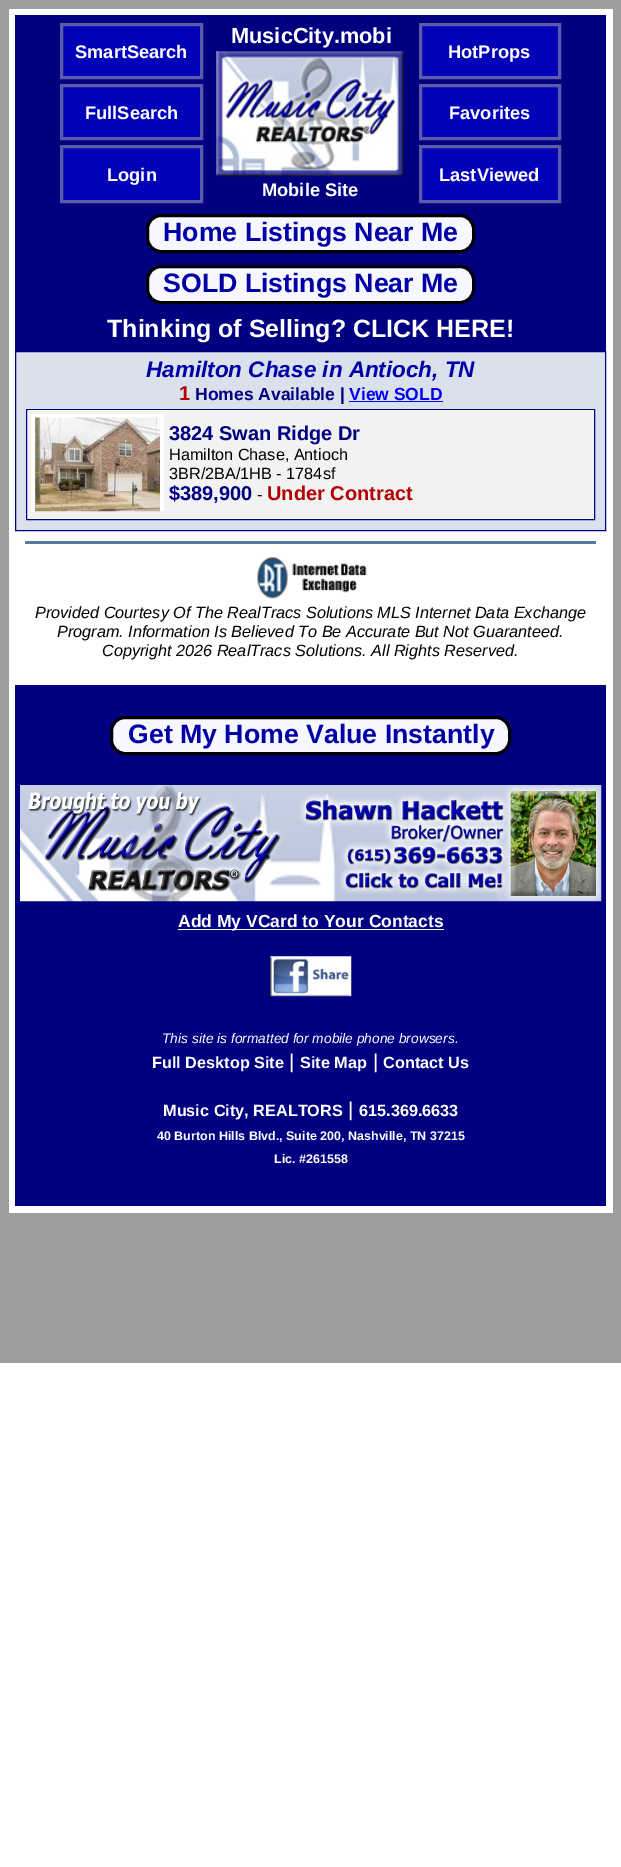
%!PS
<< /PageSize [621 1867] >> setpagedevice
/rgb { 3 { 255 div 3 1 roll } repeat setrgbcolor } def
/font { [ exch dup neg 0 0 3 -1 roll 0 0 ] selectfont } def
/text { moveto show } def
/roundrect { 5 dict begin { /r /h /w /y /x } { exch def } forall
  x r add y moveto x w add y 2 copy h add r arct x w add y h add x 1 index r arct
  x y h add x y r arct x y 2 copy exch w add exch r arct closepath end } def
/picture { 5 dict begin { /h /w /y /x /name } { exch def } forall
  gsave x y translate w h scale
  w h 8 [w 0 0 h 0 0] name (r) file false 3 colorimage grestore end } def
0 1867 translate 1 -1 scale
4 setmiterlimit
255 255 255 rgb
0 0 621 1867 rectfill
159 158 158 rgb
9 0 604 9 rectfill
613 0 8 1213 rectfill
9 1213 612 150 rectfill
0 0 9 1363 rectfill
0 0 128 rgb
15 15 591 336 rectfill
3 2 184 rgb
61.5 24.5 moveto 140 0 rlineto 0 53 rlineto -140 0 rlineto closepath gsave fill grestore
91 91 170 rgb
3 setlinewidth
stroke
(img_01.rgb) 216 51 188 126 picture
3 2 184 rgb
420.5 24.5 moveto 139 0 rlineto 0 53 rlineto -139 0 rlineto closepath gsave fill grestore
91 91 170 rgb
stroke
3 2 184 rgb
61.5 85.5 moveto 140 0 rlineto 0 53 rlineto -140 0 rlineto closepath gsave fill grestore
91 91 170 rgb
stroke
3 2 184 rgb
420.5 85.5 moveto 139 0 rlineto 0 53 rlineto -139 0 rlineto closepath gsave fill grestore
91 91 170 rgb
stroke
3 2 184 rgb
61.5 146.5 moveto 140 0 rlineto 0 55 rlineto -140 0 rlineto closepath gsave fill grestore
91 91 170 rgb
stroke
3 2 184 rgb
420.5 146.5 moveto 139 0 rlineto 0 55 rlineto -139 0 rlineto closepath gsave fill grestore
91 91 170 rgb
stroke
247 248 255 rgb
147.5 215.5 326 36 13.5 roundrect gsave fill grestore
0 0 0 rgb
stroke
247 248 255 rgb
147.5 266.5 326 36 13.5 roundrect gsave fill grestore
0 0 0 rgb
stroke
218 224 236 rgb
15.5 351.5 moveto 590 0 rlineto 0 179 rlineto -590 0 rlineto closepath gsave fill grestore
0 0 128 rgb
1 setlinewidth
stroke
0 0 238 rgb
349 401 94 1 rectfill
255 255 255 rgb
27 410 1 109 rectfill
0 0 128 rgb
26.5 409.5 568 110 rectstroke
242 242 242 rgb
28 410 566 109 rectfill
255 255 255 rgb
31 414 133 4 rectfill
31 414 4 97 rectfill
(img_02.rgb) 35 417 125 95 picture
160 414 4 97 rectfill
89 122 159 rgb
25 541 571 3 rectfill
(img_03.rgb) 257 557 110 42 picture
0 0 128 rgb
15 685 591 521 rectfill
247 248 255 rgb
111.5 717.5 398 36 13.5 roundrect gsave fill grestore
0 0 0 rgb
3 setlinewidth
stroke
(img_04.rgb) 20 785 582 117 picture
255 255 255 rgb
178 929 266 1 rectfill
(img_05.rgb) 270 956 82 41 picture
/LiberationSans-Bold 18.25 font
(SmartSearch) 75 58 text
/LiberationSans-Bold 21.75 font
(MusicCity.mobi) 231 43 text
/LiberationSans-Bold 18.25 font
(Mobile Site) 262 196 text
(HotProps) 448 58 text
(FullSearch) 85 119 text
(Favorites) 449 119 text
(Login) 107 181 text
(LastViewed) 439 181 text
/LiberationSans-Bold 26.7 font
1 0 166 rgb
(Home Listings Near Me) 163 241 text
(SOLD Listings Near Me) 163 292 text
/LiberationSans-Bold 25 font
255 255 255 rgb
(Thinking of Selling? CLICK HERE!) 107 337 text
/LiberationSans-BoldItalic 22.5 font
1 0 166 rgb
(Hamilton Chase in Antioch, TN) 146 377 text
/LiberationSans-Bold 20 font
179 0 0 rgb
(1) 179 400 text
/LiberationSans-Bold 17.5 font
0 0 128 rgb
(Homes Available |) 195 400 text
0 0 238 rgb
(View SOLD) 349 400 text
/LiberationSans-Bold 20 font
0 0 128 rgb
(3824 Swan Ridge Dr) 169 440 text
/LiberationSans-Regular 16.25 font
0 0 0 rgb
(Hamilton Chase, Antioch) 169 460 text
(3BR/2BA/1HB - 1784sf) 169 479 text
/LiberationSans-Bold 20 font
0 0 128 rgb
($389,900) 169 500 text
/LiberationSans-Regular 16.25 font
0 0 0 rgb
(-) 257 500 text
/LiberationSans-Bold 20 font
179 0 0 rgb
(Under Contract) 267 500 text
/LiberationSans-Italic 16.25 font
0 0 0 rgb
(Provided Courtesy Of The RealTracs Solutions MLS Internet Data Exchange) 35 618 text
(Program. Information Is Believed To Be Accurate But Not Guaranteed.) 57 637 text
(Copyright 2026 RealTracs Solutions. All Rights Reserved.) 102 656 text
/LiberationSans-Bold 26.7 font
1 0 166 rgb
(Get My Home Value Instantly) 128 743 text
/LiberationSans-Bold 17.5 font
255 255 255 rgb
(Add My VCard to Your Contacts) 178 927 text
/LiberationSans-Italic 13.75 font
(This site is formatted for mobile phone browsers.) 162 1043 text
/LiberationSans-Bold 16.25 font
(Full Desktop Site) 152 1068 text
/LiberationSans-Regular 20 font
(|) 289 1068 text
/LiberationSans-Bold 16.25 font
(Site Map) 300 1068 text
/LiberationSans-Regular 20 font
(|) 373 1068 text
/LiberationSans-Bold 16.25 font
(Contact Us) 383 1068 text
(Music City, REALTORS) 163 1116 text
/LiberationSans-Regular 20 font
(|) 348 1116 text
/LiberationSans-Bold 16.25 font
(615.369.6633) 359 1116 text
/LiberationSans-Bold 12.5 font
(40 Burton Hills Blvd., Suite 200, Nashville, TN 37215) 157 1140 text
(Lic. #261558) 274 1163 text
showpage
